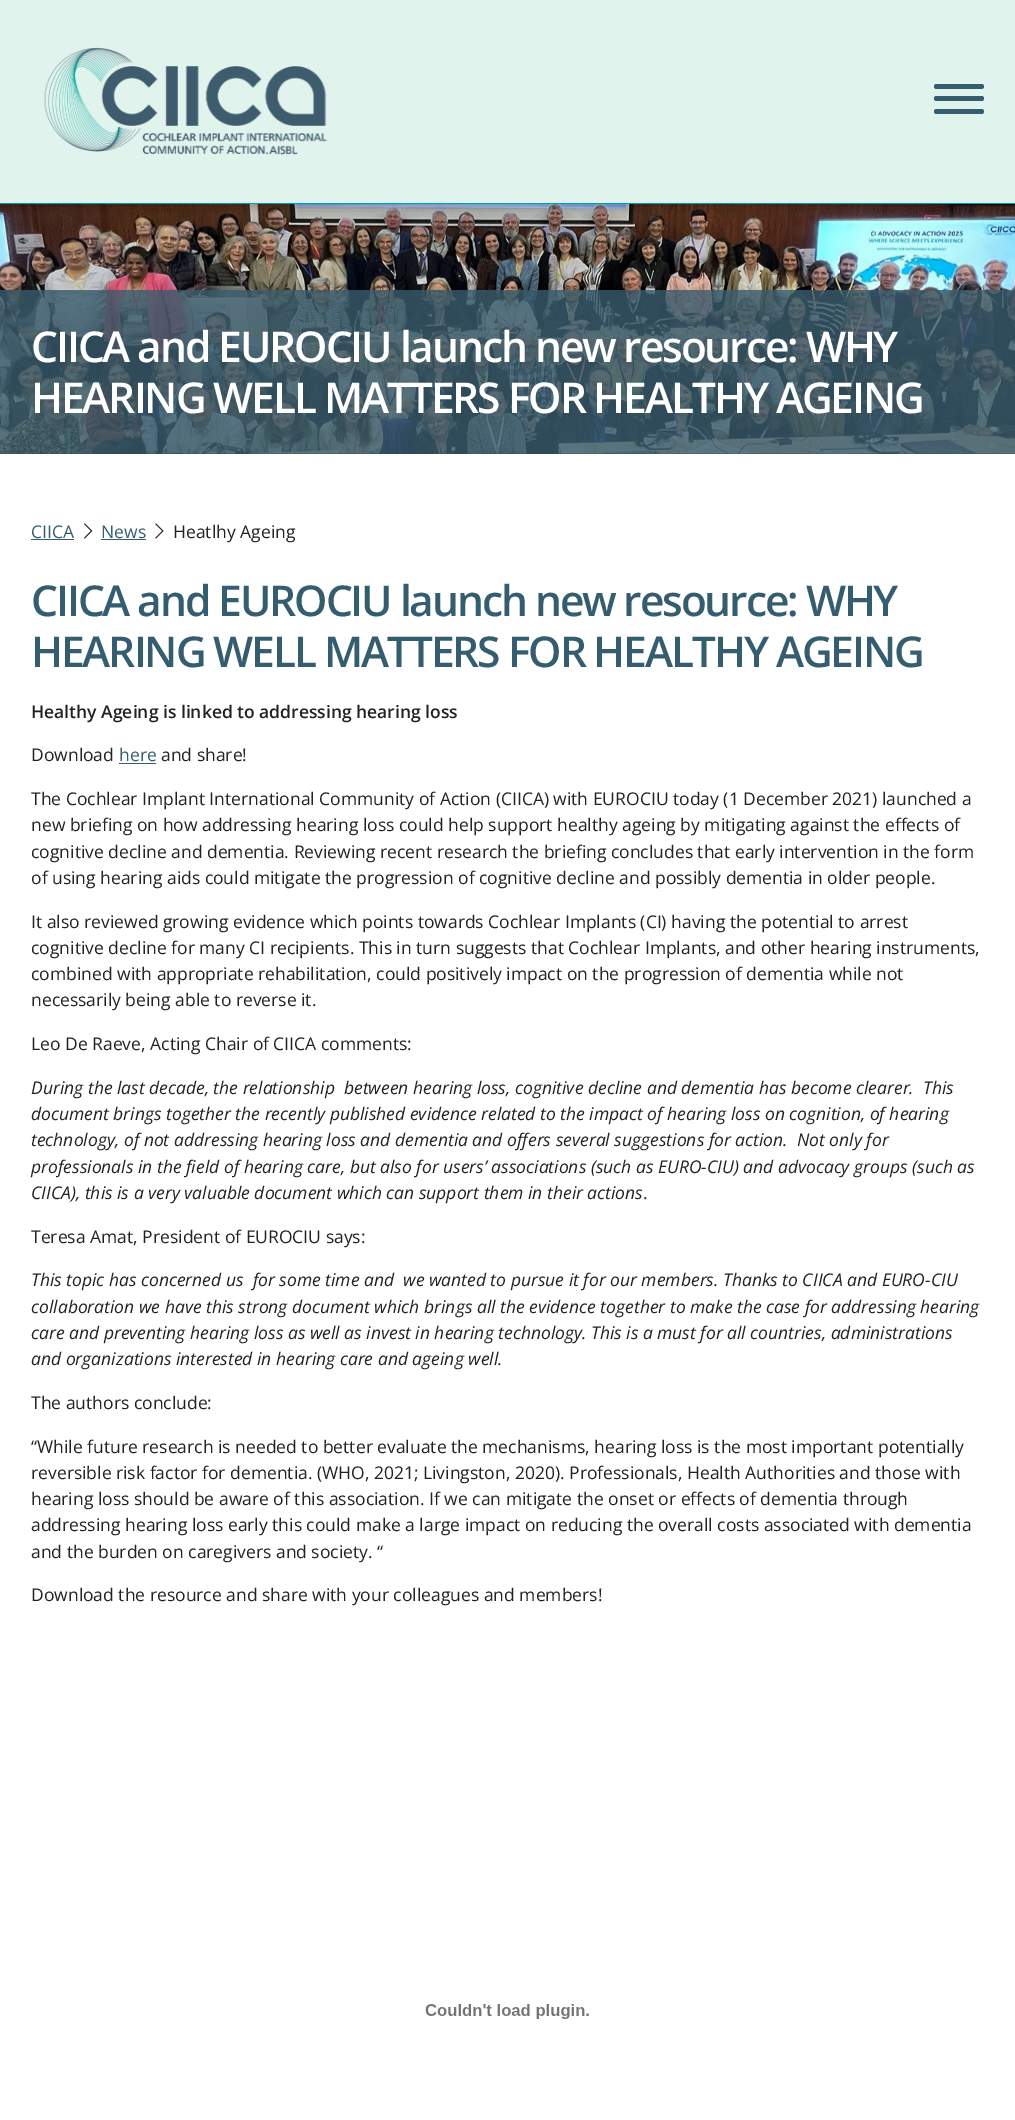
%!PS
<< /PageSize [1015 2120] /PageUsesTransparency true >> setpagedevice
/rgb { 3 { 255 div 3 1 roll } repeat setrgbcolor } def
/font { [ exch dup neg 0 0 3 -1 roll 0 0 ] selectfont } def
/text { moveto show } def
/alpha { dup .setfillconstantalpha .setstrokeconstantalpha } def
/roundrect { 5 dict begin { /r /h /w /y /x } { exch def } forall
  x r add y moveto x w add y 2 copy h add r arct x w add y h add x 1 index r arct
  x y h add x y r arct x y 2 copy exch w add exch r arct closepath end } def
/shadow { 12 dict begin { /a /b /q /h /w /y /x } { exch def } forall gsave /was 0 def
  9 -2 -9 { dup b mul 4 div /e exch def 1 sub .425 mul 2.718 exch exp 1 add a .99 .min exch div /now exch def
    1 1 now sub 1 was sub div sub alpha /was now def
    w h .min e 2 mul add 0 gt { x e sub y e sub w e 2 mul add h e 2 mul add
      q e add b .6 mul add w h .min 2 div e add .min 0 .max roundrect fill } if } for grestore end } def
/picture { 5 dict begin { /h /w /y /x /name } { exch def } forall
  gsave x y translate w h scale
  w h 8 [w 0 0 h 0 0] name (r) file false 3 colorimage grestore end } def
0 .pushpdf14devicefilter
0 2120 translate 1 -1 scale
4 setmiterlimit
255 255 255 rgb
0 0 1015 2120 rectfill
(img_02.rgb) 0 204 1015 250 picture
0 0 0 rgb
0 4 1015 204 0 5 0.24 shadow
225 243 237 rgb
0 0 1015 203 rectfill
0 160 163 rgb
0 203 1015 1 rectfill
(img_01.rgb) 44 47 284 108 picture
52 93 111 rgb
934 96 50 5 2.5 roundrect fill
934 84 50 5 2.5 roundrect fill
934 109 50 5 2.5 roundrect fill
0.8 alpha
57 91 108 rgb
0 290 1015 164 rectfill
1 alpha
52 93 111 rgb
31 539 43 1 rectfill
(img_03.rgb) 84 523 9 16 picture
101 539 45 1 rectfill
(img_04.rgb) 155 523 9 16 picture
119 763 37 1 rectfill
(img_05.rgb) 425 2004 164 15 picture
/OpenSans-SemiBold 42.5 font
255 255 255 rgb
31 362 moveto -2.1 0 (CIICA and EUROCIU launch new resource: WHY) ashow
31 413 moveto -2.1 0 (HEARING WELL MATTERS FOR HEALTHY AGEING) ashow
/OpenSans-Regular 17.5 font
52 93 111 rgb
(CIICA) 31 538 text
(News) 101 538 text
34 34 34 rgb
(Heatlhy Ageing) 173 538 text
/OpenSans-SemiBold 42.5 font
52 93 111 rgb
31 616 moveto -2.1 0 (CIICA and EUROCIU launch new resource: WHY) ashow
31 667 moveto -2.1 0 (HEARING WELL MATTERS FOR HEALTHY AGEING) ashow
/OpenSans-SemiBold 17.5 font
34 34 34 rgb
(Healthy Ageing is linked to addressing hearing loss) 31 718 text
/OpenSans-Regular 17.5 font
(Download) 31 761 text
52 93 111 rgb
(here) 119 761 text
34 34 34 rgb
(and share!) 161 761 text
(The Cochlear Implant International Community of Action \(CIICA\) with EUROCIU today \(1 December 2021\) launched a) 31 805 text
(new briefing on how addressing hearing loss could help support healthy ageing by mitigating against the effects of) 31 831 text
(cognitive decline and dementia. Reviewing recent research the briefing concludes that early intervention in the form) 31 858 text
(of using hearing aids could mitigate the progression of cognitive decline and possibly dementia in older people.) 31 884 text
(It also reviewed growing evidence which points towards Cochlear Implants \(CI\) having the potential to arrest) 31 928 text
(cognitive decline for many CI recipients. This in turn suggests that Cochlear Implants, and other hearing instruments,) 31 954 text
(combined with appropriate rehabilitation, could positively impact on the progression of dementia while not) 31 980 text
(necessarily being able to reverse it.) 31 1006 text
(Leo De Raeve, Acting Chair of CIICA comments:) 31 1050 text
/OpenSans-Italic 17.5 font
(During the last decade, the relationship  between hearing loss, cognitive decline and dementia has become clearer.  This) 31 1094 text
(document brings together the recently published evidence related to the impact of hearing loss on cognition, of hearing) 31 1120 text
(technology, of not addressing hearing loss and dementia and offers several suggestions for action.  Not only for) 31 1146 text
(professionals in the field of hearing care, but also for users’ associations \(such as EURO-CIU\) and advocacy groups \(such as) 31 1173 text
(CIICA\), this is a very valuable document which can support them in their actions) 31 1199 text
/OpenSans-Regular 17.5 font
(.) 643 1199 text
(Teresa Amat, President of EUROCIU says:) 31 1243 text
/OpenSans-Italic 17.5 font
(This topic has concerned us  for some time and  we wanted to pursue it for our members. Thanks to CIICA and EURO-CIU) 31 1286 text
(collaboration we have this strong document which brings all the evidence together to make the case for addressing hearing) 31 1313 text
(care and preventing hearing loss as well as invest in hearing technology. This is a must for all countries, administrations) 31 1339 text
(and organizations interested in hearing care and ageing well.) 31 1365 text
/OpenSans-Regular 17.5 font
(The authors conclude:) 31 1409 text
(“While future research is needed to better evaluate the mechanisms, hearing loss is the most important potentially) 31 1453 text
(reversible risk factor for dementia. \(WHO, 2021; Livingston, 2020\). Professionals, Health Authorities and those with) 31 1479 text
(hearing loss should be aware of this association. If we can mitigate the onset or effects of dementia through) 31 1505 text
(addressing hearing loss early this could make a large impact on reducing the overall costs associated with dementia) 31 1531 text
(and the burden on caregivers and society. “) 31 1558 text
(Download the resource and share with your colleagues and members!) 31 1601 text
.poppdf14devicefilter showpage
